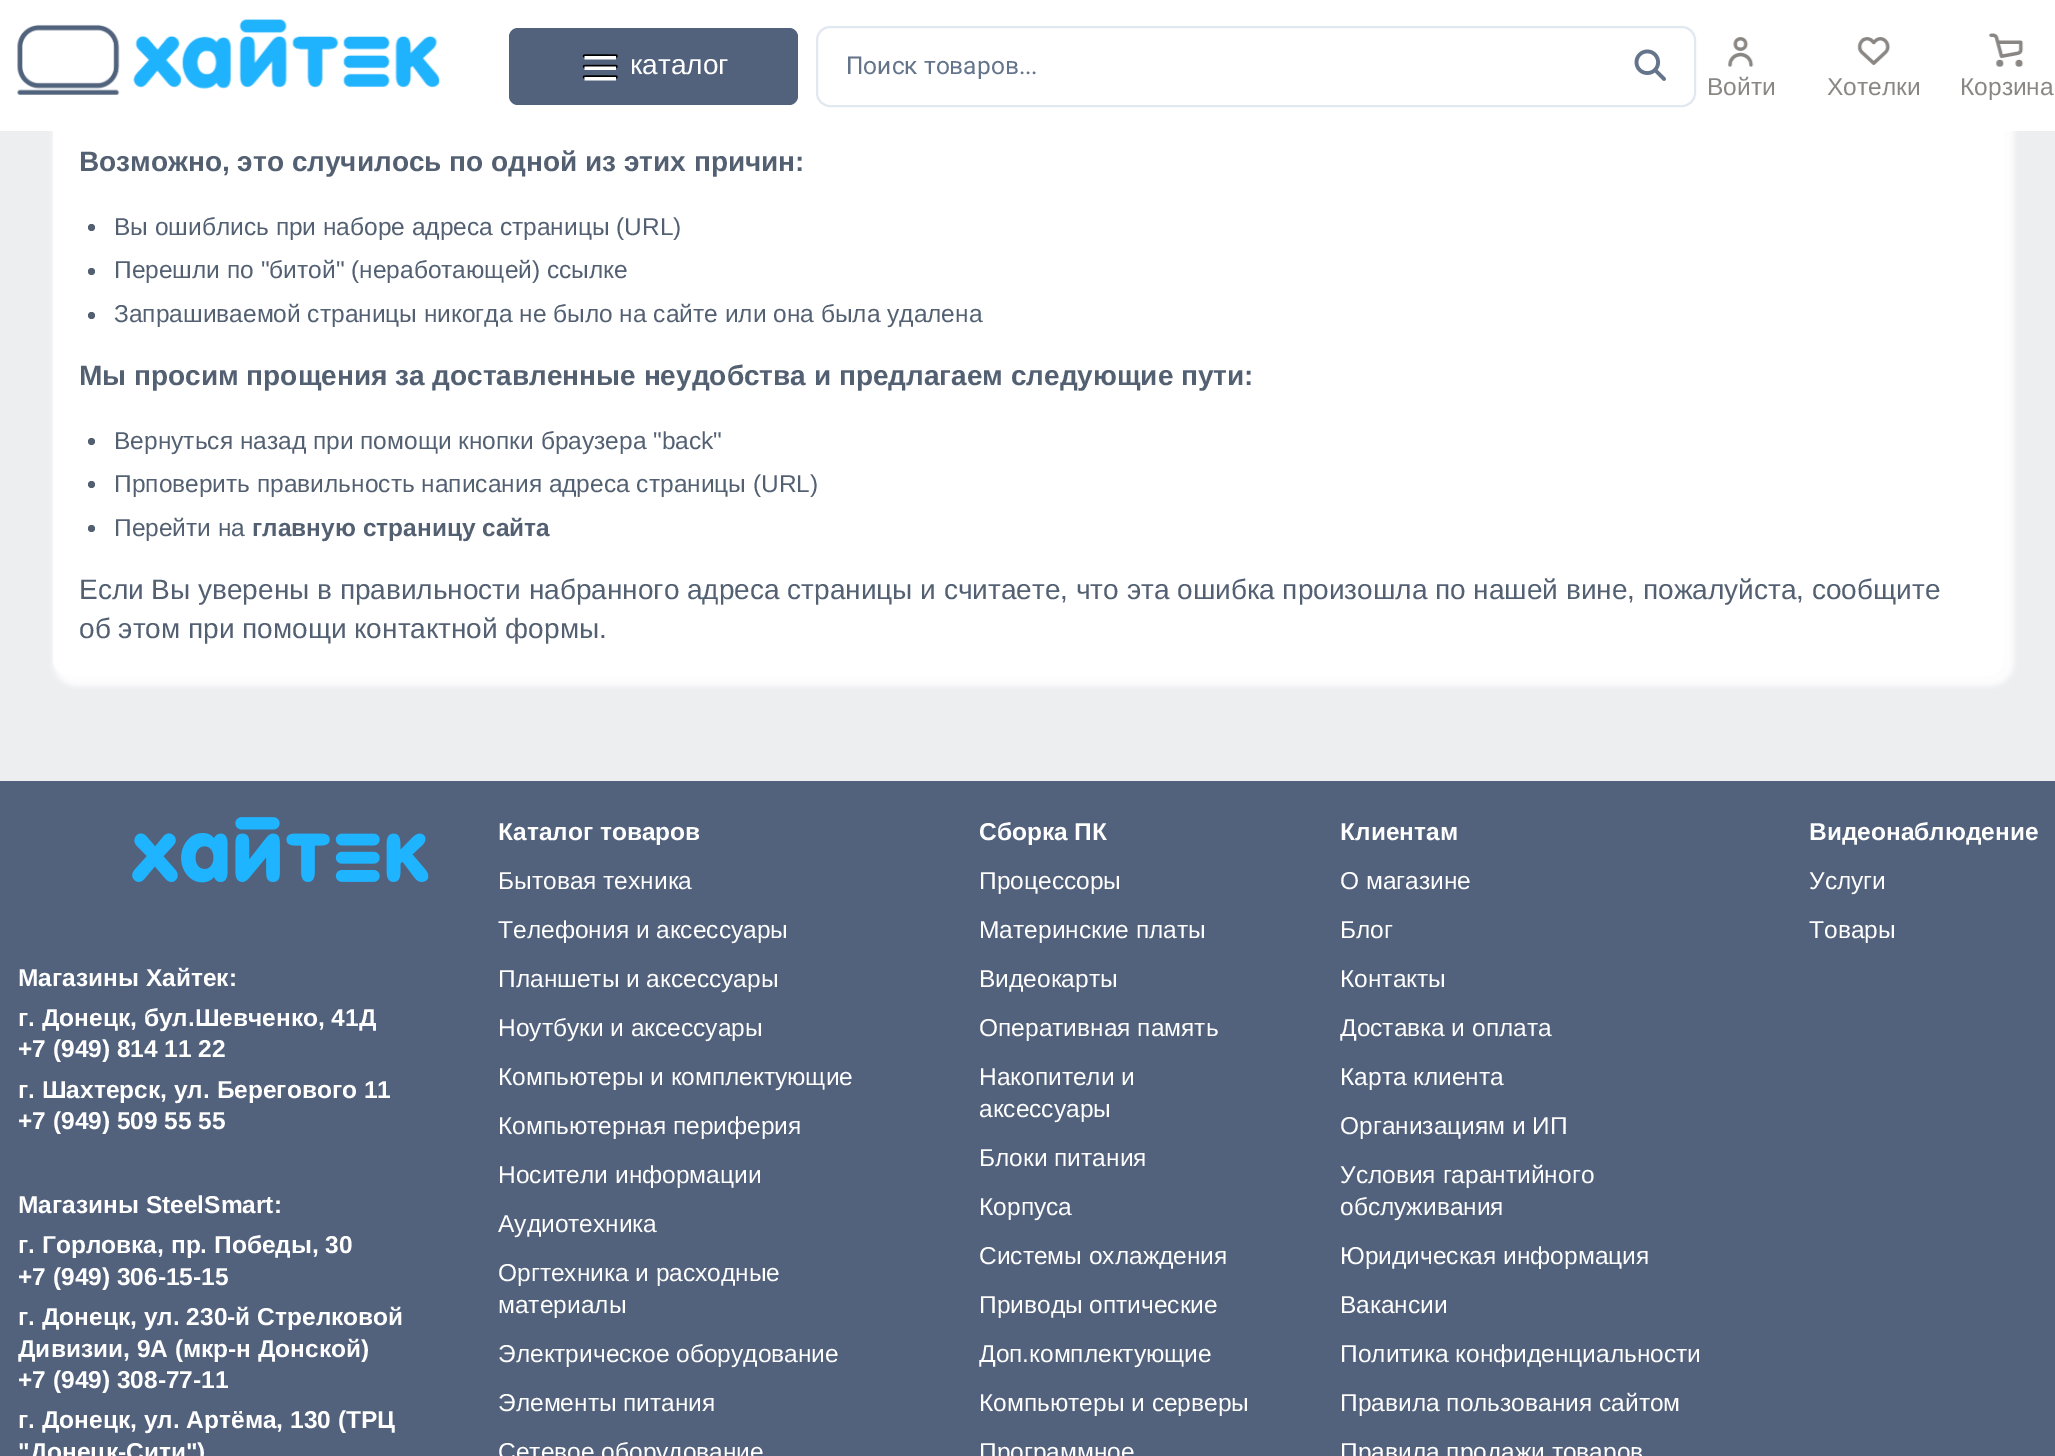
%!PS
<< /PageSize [2055 1456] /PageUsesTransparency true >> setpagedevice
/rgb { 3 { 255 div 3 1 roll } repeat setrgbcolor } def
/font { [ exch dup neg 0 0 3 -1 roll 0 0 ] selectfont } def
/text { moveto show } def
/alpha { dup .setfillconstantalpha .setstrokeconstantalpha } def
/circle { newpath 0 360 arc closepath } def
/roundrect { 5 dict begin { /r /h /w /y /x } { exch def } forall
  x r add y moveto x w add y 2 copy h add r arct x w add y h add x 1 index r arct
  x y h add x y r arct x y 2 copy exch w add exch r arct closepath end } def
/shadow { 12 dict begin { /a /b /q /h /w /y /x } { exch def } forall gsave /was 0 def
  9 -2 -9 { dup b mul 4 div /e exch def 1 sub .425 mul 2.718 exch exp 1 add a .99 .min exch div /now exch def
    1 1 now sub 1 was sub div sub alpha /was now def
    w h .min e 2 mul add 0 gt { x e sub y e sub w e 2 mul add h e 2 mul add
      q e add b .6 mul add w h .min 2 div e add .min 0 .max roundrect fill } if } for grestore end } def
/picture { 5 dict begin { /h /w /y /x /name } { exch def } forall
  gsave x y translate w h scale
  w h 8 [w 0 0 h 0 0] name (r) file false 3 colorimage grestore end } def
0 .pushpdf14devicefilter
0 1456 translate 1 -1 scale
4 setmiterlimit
237 238 240 rgb
0 0 2055 1456 rectfill
255 255 255 rgb
53 -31 1961 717 23 2.5 0.9 shadow
53 -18 1951 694 18 roundrect fill
0 0 2055 131 rectfill
(img_01.rgb) 17 19 423 76 picture
82 97 124 rgb
509 28 289 77 9 roundrect fill
(img_02.rgb) 582 54 36 25 picture
(img_03.rgb) 584 56 32 25 picture
226 232 240 rgb
2 setlinewidth
817 27 878 79 13 roundrect stroke
(img_04.rgb) 1634 49 32 32 picture
(img_05.rgb) 1728 37 26 30 picture
(img_06.rgb) 1857 37 34 28 picture
(img_07.rgb) 1989 33 35 34 picture
83 96 114 rgb
91.5 227.5 3.5 circle fill
91.5 271.5 3.5 circle fill
91.5 315.5 3.5 circle fill
91.5 441.5 3.5 circle fill
91.5 484.5 3.5 circle fill
91.5 528.5 3.5 circle fill
82 97 124 rgb
0 781 2055 675 rectfill
(img_08.rgb) 132 817 297 66 picture
/LiberationSans-Regular 28 font
255 255 255 rgb
(каталог) 630 74 text
/Roboto-Regular 24.5 font
100 116 139 rgb
(Поиск товаров...) 846 74 text
/LiberationSans-Regular 24.5 font
138 134 131 rgb
(Войти) 1707 95 text
(Хотелки) 1827 95 text
(Корзина) 1960 95 text
/LiberationSans-Bold 28 font
83 96 114 rgb
(Возможно, это случилось по одной из этих причин:) 79 171 text
/LiberationSans-Regular 24.5 font
(Вы ошиблись при наборе адреса страницы \(URL\)) 114 235 text
(Перешли по "битой" \(неработающей\) ссылке) 114 278 text
(Запрашиваемой страницы никогда не было на сайте или она была удалена) 114 322 text
/LiberationSans-Bold 28 font
(Мы просим прощения за доставленные неудобства и предлагаем следующие пути:) 79 385 text
/LiberationSans-Regular 24.5 font
(Вернуться назад при помощи кнопки браузера "back") 114 449 text
(Прповерить правильность написания адреса страницы \(URL\)) 114 492 text
(Перейти на) 114 536 text
/LiberationSans-Bold 24.5 font
(главную страницу сайта) 252 536 text
/LiberationSans-Regular 28 font
(Если Вы уверены в правильности набранного адреса страницы и считаете, что эта ошибка произошла по нашей вине, пожалуйста, сообщите) 79 599 text
(об этом при помощи контактной формы.) 79 638 text
/LiberationSans-Bold 24.5 font
255 255 255 rgb
(Магазины Хайтек:) 18 986 text
(г. Донецк, бул.Шевченко, 41Д) 18 1026 text
(+7 \(949\) 814 11 22) 18 1057 text
(г. Шахтерск, ул. Берегового 11) 18 1098 text
(+7 \(949\) 509 55 55) 18 1129 text
(Магазины SteelSmart:) 18 1213 text
(г. Горловка, пр. Победы, 30) 18 1253 text
(+7 \(949\) 306-15-15) 18 1285 text
(г. Донецк, ул. 230-й Стрелковой) 18 1325 text
(Дивизии, 9А \(мкр-н Донской\)) 18 1357 text
(+7 \(949\) 308-77-11) 18 1388 text
(г. Донецк, ул. Артёма, 130 \(ТРЦ) 18 1428 text
("Донецк-Сити"\)) 18 1460 text
(Каталог товаров) 498 840 text
/LiberationSans-Regular 24.5 font
(Бытовая техника) 498 889 text
(Телефония и аксессуары) 498 938 text
(Планшеты и аксессуары) 498 987 text
(Ноутбуки и аксессуары) 498 1036 text
(Компьютеры и комплектующие) 498 1085 text
(Компьютерная периферия) 498 1134 text
(Носители информации) 498 1183 text
(Аудиотехника) 498 1232 text
(Оргтехника и расходные) 498 1281 text
(материалы) 498 1313 text
(Электрическое оборудование) 498 1362 text
(Элементы питания) 498 1411 text
(Сетевое оборудование) 498 1460 text
/LiberationSans-Bold 24.5 font
(Сборка ПК) 979 840 text
/LiberationSans-Regular 24.5 font
(Процессоры) 979 889 text
(Материнские платы) 979 938 text
(Видеокарты) 979 987 text
(Оперативная память) 979 1036 text
(Накопители и) 979 1085 text
(аксессуары) 979 1117 text
(Блоки питания) 979 1166 text
(Корпуса) 979 1215 text
(Системы охлаждения) 979 1264 text
(Приводы оптические) 979 1313 text
(Доп.комплектующие) 979 1362 text
(Компьютеры и серверы) 979 1411 text
(Программное) 979 1460 text
/LiberationSans-Bold 24.5 font
(Клиентам) 1340 840 text
/LiberationSans-Regular 24.5 font
(О магазине) 1340 889 text
(Блог) 1340 938 text
(Контакты) 1340 987 text
(Доставка и оплата) 1340 1036 text
(Карта клиента) 1340 1085 text
(Организациям и ИП) 1340 1134 text
(Условия гарантийного) 1340 1183 text
(обслуживания) 1340 1215 text
(Юридическая информация) 1340 1264 text
(Вакансии) 1340 1313 text
(Политика конфиденциальности) 1340 1362 text
(Правила пользования сайтом) 1340 1411 text
(Правила продажи товаров) 1340 1460 text
/LiberationSans-Bold 24.5 font
(Видеонаблюдение) 1809 840 text
/LiberationSans-Regular 24.5 font
(Услуги) 1809 889 text
(Товары) 1809 938 text
.poppdf14devicefilter showpage
